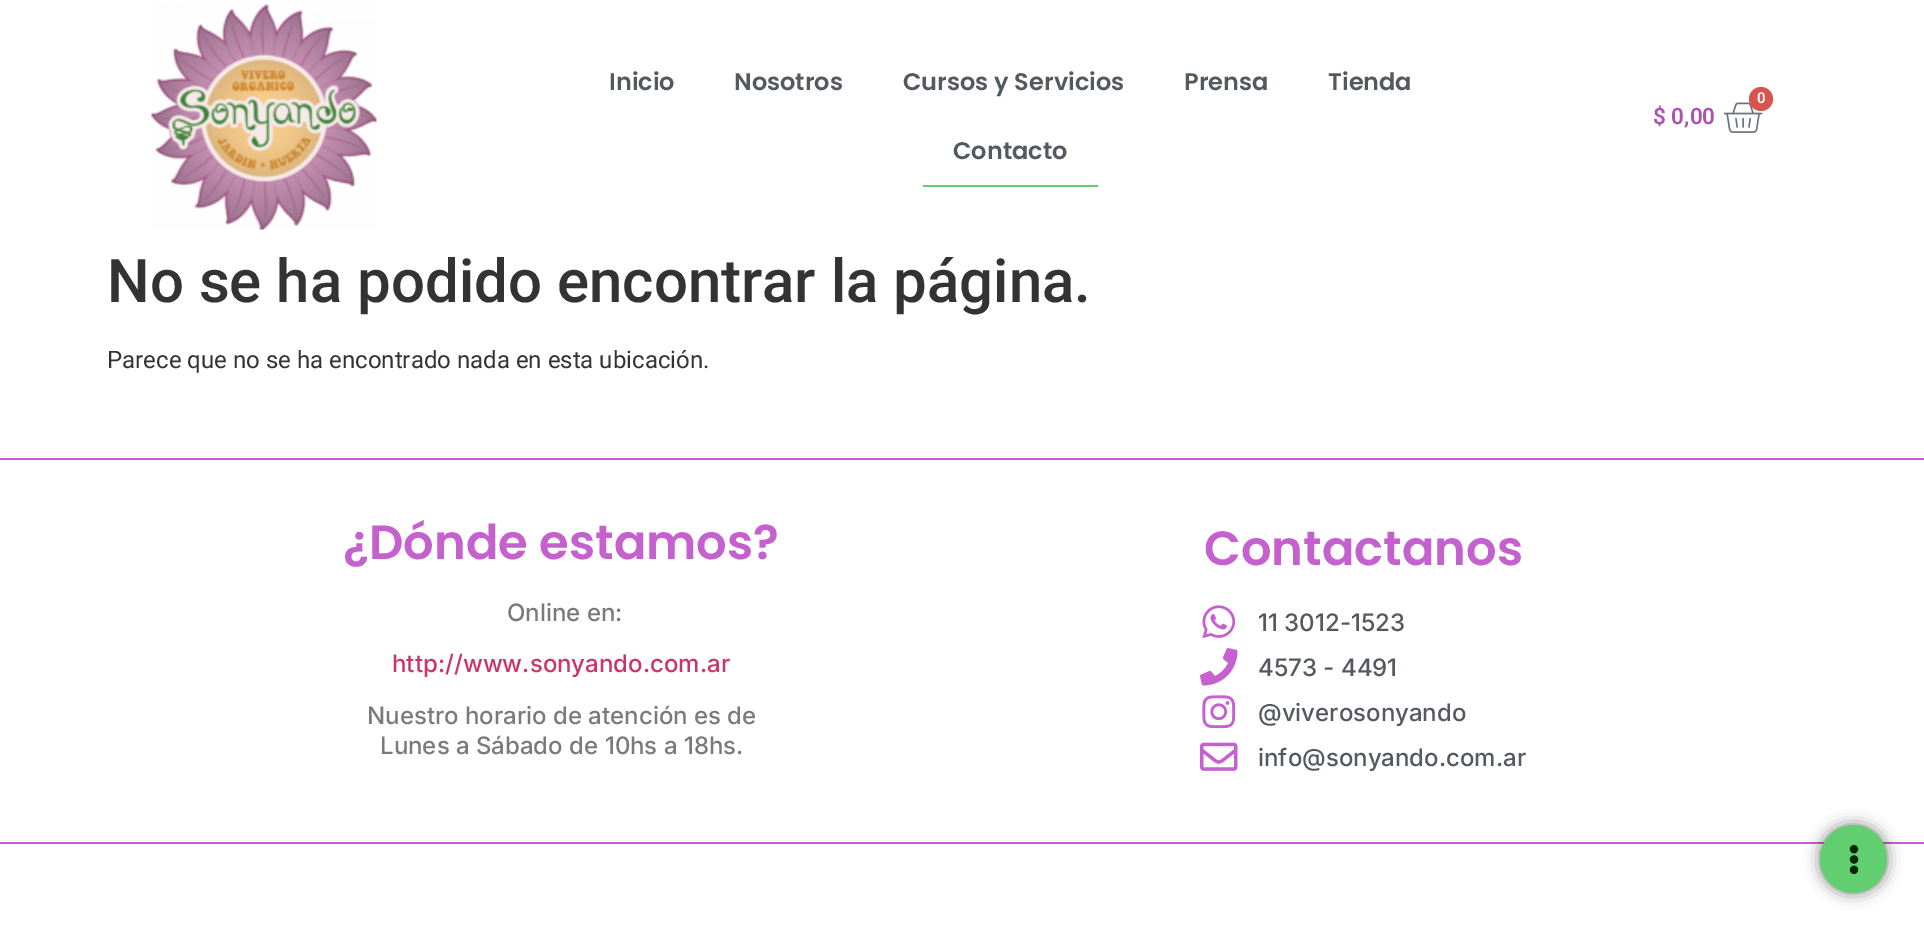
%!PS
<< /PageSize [1924 929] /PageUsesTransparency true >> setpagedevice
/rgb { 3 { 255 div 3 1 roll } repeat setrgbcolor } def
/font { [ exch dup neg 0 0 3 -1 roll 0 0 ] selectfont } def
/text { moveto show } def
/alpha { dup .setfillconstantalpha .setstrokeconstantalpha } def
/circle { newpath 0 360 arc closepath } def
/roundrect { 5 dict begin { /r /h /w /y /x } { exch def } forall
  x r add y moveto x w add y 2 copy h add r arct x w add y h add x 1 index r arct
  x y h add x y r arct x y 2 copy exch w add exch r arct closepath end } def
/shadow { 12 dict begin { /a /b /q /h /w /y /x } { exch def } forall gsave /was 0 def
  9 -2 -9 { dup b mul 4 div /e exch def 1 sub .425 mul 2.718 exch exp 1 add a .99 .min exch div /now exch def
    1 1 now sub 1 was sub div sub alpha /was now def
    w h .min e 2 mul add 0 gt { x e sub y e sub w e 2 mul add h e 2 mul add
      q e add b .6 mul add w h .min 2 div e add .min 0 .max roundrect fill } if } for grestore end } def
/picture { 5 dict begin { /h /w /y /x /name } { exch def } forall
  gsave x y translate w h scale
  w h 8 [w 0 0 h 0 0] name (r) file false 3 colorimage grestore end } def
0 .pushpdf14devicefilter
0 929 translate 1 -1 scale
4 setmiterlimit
255 255 255 rgb
0 0 1924 929 rectfill
(img_01.rgb) 151 4 226 226 picture
97 206 112 rgb
923 185 175 2 rectfill
(img_02.rgb) 1723 102 40 31 picture
217 83 79 rgb
1761 99 12 circle fill
197 97 206 rgb
0 458 1924 2 rectfill
0 842 1924 2 rectfill
(img_03.rgb) 1202 605 34 34 picture
(img_04.rgb) 1200 648 38 38 picture
(img_05.rgb) 1202 695 34 34 picture
(img_06.rgb) 1200 742 38 29 picture
0 0 0 rgb
1820 825 67 68 33.5 7.5 0.5 shadow
97 206 112 rgb
1820 825 67 68 33.5 roundrect fill
(img_07.rgb) 1849 845 10 29 picture
/Poppins-SemiBold 24 font
84 89 95 rgb
(Inicio) 609 90 text
(Nosotros) 734 90 text
(Cursos y Servicios) 903 90 text
(Prensa) 1184 90 text
(Tienda) 1328 90 text
(Contacto) 953 159 text
/Roboto-SemiBold 15 font
255 255 255 rgb
(0) 1757 103 text
/Roboto-SemiBold 22.5 font
171 83 179 rgb
($ 0,00) 1653 124 text
/Roboto-Medium 60 font
51 51 51 rgb
(No se ha podido encontrar la página.) 107 302 text
/Roboto-Regular 24 font
(Parece que no se ha encontrado nada en esta ubicación.) 107 368 text
/Poppins-SemiBold 48 font
197 97 206 rgb
(¿Dónde estamos?) 343 559 text
/Inter-Medium 24 font
122 122 122 rgb
(Online en:) 507 621 text
204 51 102 rgb
(http://www.sonyando.com.ar) 392 672 text
122 122 122 rgb
(Nuestro horario de atención es de) 367 724 text
(Lunes a Sábado de 10hs a 18hs.) 380 754 text
/Poppins-SemiBold 48 font
197 97 206 rgb
(Contactanos) 1204 565 text
/Inter-Medium 24 font
84 89 95 rgb
(11 3012-1523) 1258 631 text
(4573 - 4491) 1258 676 text
(@viverosonyando) 1258 721 text
(info@sonyando.com.ar) 1258 766 text
.poppdf14devicefilter showpage
